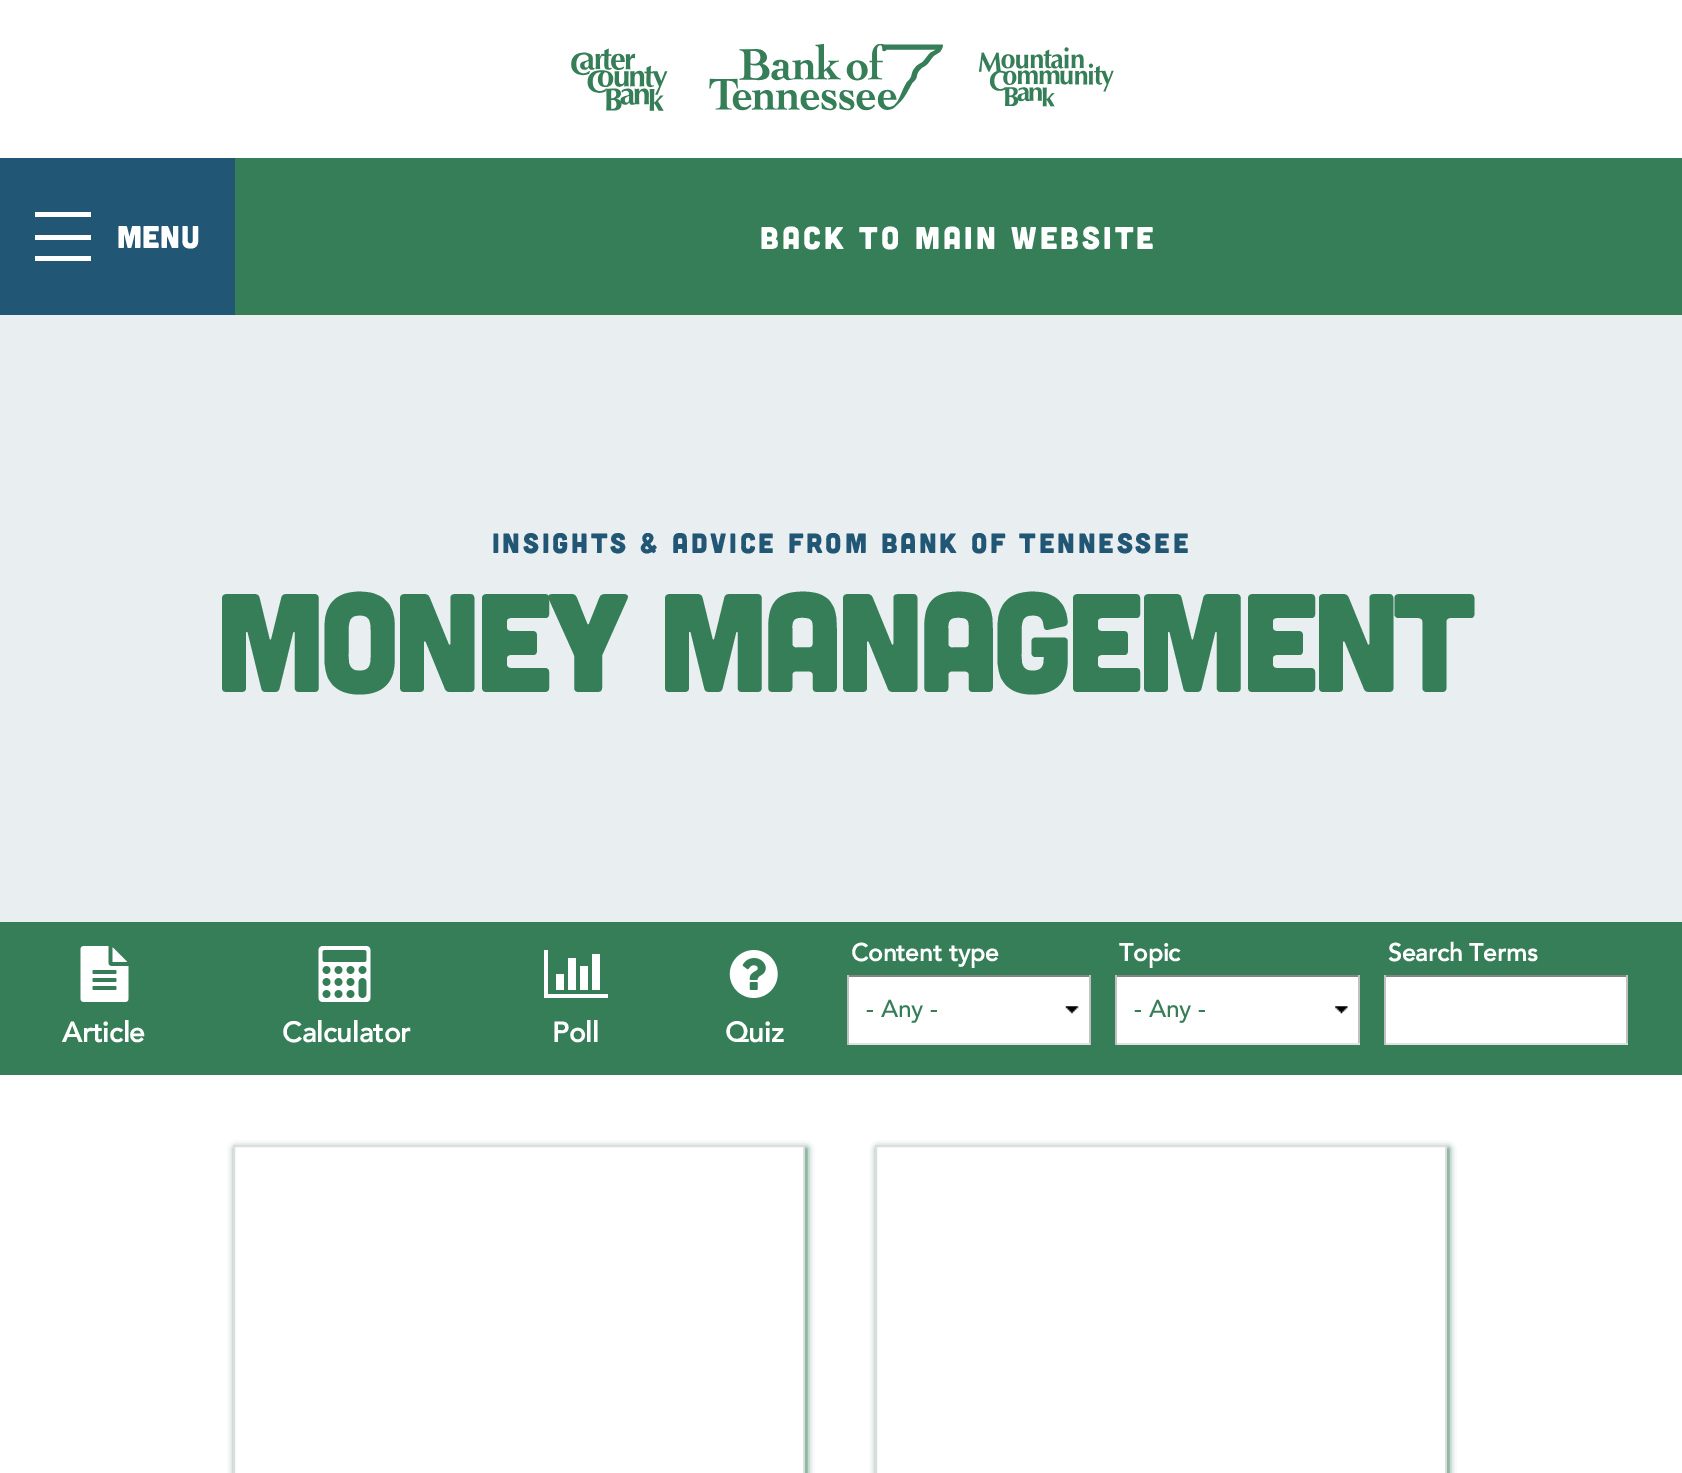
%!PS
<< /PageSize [1682 1473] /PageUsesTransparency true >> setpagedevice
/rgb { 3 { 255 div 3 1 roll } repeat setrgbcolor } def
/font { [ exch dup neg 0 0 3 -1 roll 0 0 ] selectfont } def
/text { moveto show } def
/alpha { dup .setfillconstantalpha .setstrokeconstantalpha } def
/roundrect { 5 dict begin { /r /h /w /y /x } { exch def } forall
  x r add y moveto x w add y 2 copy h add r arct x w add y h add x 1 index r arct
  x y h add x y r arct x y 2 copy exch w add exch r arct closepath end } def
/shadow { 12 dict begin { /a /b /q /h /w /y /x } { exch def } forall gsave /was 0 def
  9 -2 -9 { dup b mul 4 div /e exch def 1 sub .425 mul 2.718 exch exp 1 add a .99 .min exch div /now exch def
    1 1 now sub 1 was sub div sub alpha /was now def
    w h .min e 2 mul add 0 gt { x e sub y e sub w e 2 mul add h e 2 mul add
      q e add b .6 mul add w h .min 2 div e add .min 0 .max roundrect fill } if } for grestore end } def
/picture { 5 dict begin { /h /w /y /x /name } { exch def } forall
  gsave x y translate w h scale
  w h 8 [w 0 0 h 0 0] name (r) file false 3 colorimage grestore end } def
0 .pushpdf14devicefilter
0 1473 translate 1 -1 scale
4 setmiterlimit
255 255 255 rgb
0 0 1682 1473 rectfill
(img_01.rgb) 571 44 543 67 picture
34 86 117 rgb
0 158 235 157 rectfill
255 255 255 rgb
35 212 56 5 rectfill
35 256 56 5 rectfill
35 235 56 5 rectfill
53 126 88 rgb
235 158 1447 157 rectfill
233 238 241 rgb
0 315 1682 607 rectfill
53 126 88 rgb
0 922 1682 153 rectfill
255 255 255 rgb
849 977 240 66 rectfill
(img_02.rgb) 1065 1006 14 8 picture
132 132 132 rgb
847 975 243 2 rectfill
193 193 193 rgb
1089 975 2 70 rectfill
225 225 225 rgb
847 1043 243 2 rectfill
193 193 193 rgb
847 975 2 70 rectfill
255 255 255 rgb
1117 977 241 66 rectfill
(img_03.rgb) 1335 1006 13 8 picture
132 132 132 rgb
1115 975 245 2 rectfill
193 193 193 rgb
1358 975 2 70 rectfill
225 225 225 rgb
1115 1043 245 2 rectfill
193 193 193 rgb
1115 975 2 70 rectfill
255 255 255 rgb
1386 977 240 66 rectfill
132 132 132 rgb
1384 975 244 2 rectfill
193 193 193 rgb
1626 975 2 70 rectfill
225 225 225 rgb
1384 1043 244 2 rectfill
193 193 193 rgb
1384 975 2 70 rectfill
gsave
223 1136 moveto 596 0 rlineto 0 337 rlineto -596 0 rlineto closepath 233 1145 moveto 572 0 rlineto 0 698 rlineto -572 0 rlineto closepath eoclip newpath
53 126 88 rgb
235 1148 572 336 0 3.5 1 shadow
grestore
221 221 221 rgb
2 setlinewidth
234 1146 570 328 rectstroke
gsave
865 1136 moveto 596 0 rlineto 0 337 rlineto -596 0 rlineto closepath 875 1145 moveto 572 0 rlineto 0 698 rlineto -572 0 rlineto closepath eoclip newpath
53 126 88 rgb
877 1148 572 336 0 3.5 1 shadow
grestore
876 1146 570 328 rectstroke
(img_04.rgb) 80 946 49 56 picture
(img_05.rgb) 318 946 53 56 picture
255 255 255 rgb
564 974 moveto 0 16 rlineto -8 0 rlineto 0 -16 rlineto closepath 576 958 moveto 0 32 rlineto -8 0 rlineto 0 -32 rlineto closepath 608 994 moveto 0 4 rlineto -64 0 rlineto 0 -48 rlineto 4 0 rlineto 0 44 rlineto closepath 588 966 moveto 0 24 rlineto -8 0 rlineto 0 -24 rlineto closepath 600 954 moveto 0 36 rlineto -8 0 rlineto 0 -36 rlineto closepath fill
(img_06.rgb) 729 950 49 48 picture
/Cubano-Regular 31.5 font
117 248 moveto 0.5 0 (MENU) ashow
760 249 moveto 3.1 0 (BACK TO MAIN WEBSITE) ashow
/Cubano-Regular 28 font
34 86 117 rgb
492 553 moveto 2.8 0 (INSIGHTS & ADVICE FROM BANK OF TENNESSEE) ashow
/Cubano-Regular 140 font
53 126 88 rgb
215 692 moveto -7 0 (Money Management) ashow
/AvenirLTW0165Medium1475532-Bold 24.5 font
255 255 255 rgb
(Content type) 851 961 text
/AvenirLTW0165Medium1475532-Medium 24.5 font
53 126 88 rgb
(- Any -) 866 1017 text
/AvenirLTW0165Medium1475532-Bold 24.5 font
255 255 255 rgb
(Topic) 1119 961 text
/AvenirLTW0165Medium1475532-Medium 24.5 font
53 126 88 rgb
(- Any -) 1134 1017 text
/AvenirLTW0165Medium1475532-Bold 24.5 font
255 255 255 rgb
(Search Terms) 1388 961 text
/AvenirLTW0165Medium1475532-Bold 28 font
(Article) 62 1042 text
(Calculator) 282 1042 text
(Poll) 552 1042 text
(Quiz) 725 1042 text
.poppdf14devicefilter showpage
